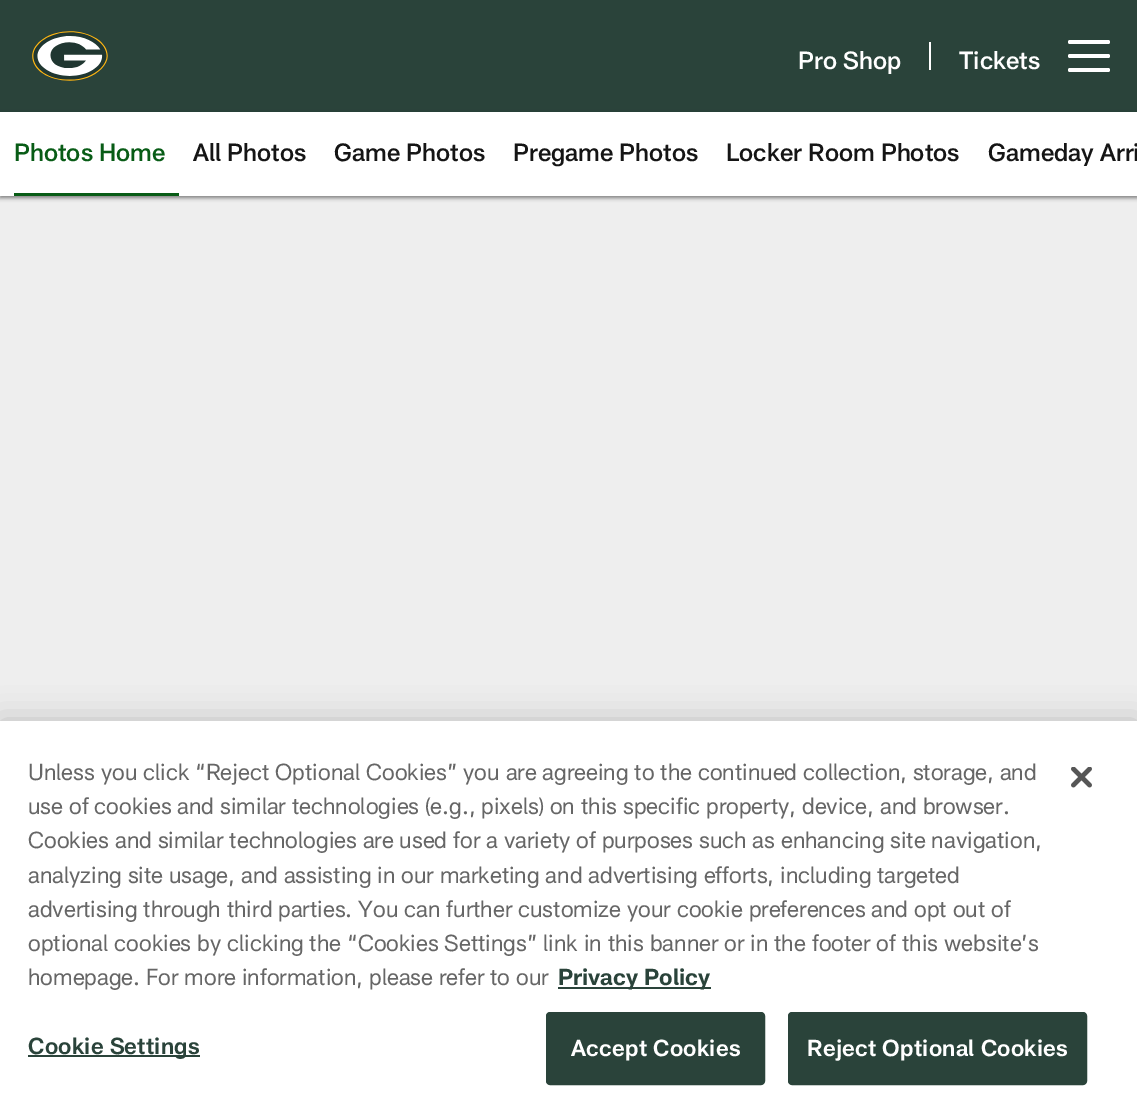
%!PS
<< /PageSize [1137 1117] /PageUsesTransparency true >> setpagedevice
/rgb { 3 { 255 div 3 1 roll } repeat setrgbcolor } def
/font { [ exch dup neg 0 0 3 -1 roll 0 0 ] selectfont } def
/text { moveto show } def
/alpha { dup .setfillconstantalpha .setstrokeconstantalpha } def
/roundrect { 5 dict begin { /r /h /w /y /x } { exch def } forall
  x r add y moveto x w add y 2 copy h add r arct x w add y h add x 1 index r arct
  x y h add x y r arct x y 2 copy exch w add exch r arct closepath end } def
/shadow { 12 dict begin { /a /b /q /h /w /y /x } { exch def } forall gsave /was 0 def
  9 -2 -9 { dup b mul 4 div /e exch def 1 sub .425 mul 2.718 exch exp 1 add a .99 .min exch div /now exch def
    1 1 now sub 1 was sub div sub alpha /was now def
    w h .min e 2 mul add 0 gt { x e sub y e sub w e 2 mul add h e 2 mul add
      q e add b .6 mul add w h .min 2 div e add .min 0 .max roundrect fill } if } for grestore end } def
/picture { 5 dict begin { /h /w /y /x /name } { exch def } forall
  gsave x y translate w h scale
  w h 8 [w 0 0 h 0 0] name (r) file false 3 colorimage grestore end } def
0 .pushpdf14devicefilter
0 1117 translate 1 -1 scale
4 setmiterlimit
238 238 238 rgb
0 0 1137 1117 rectfill
42 67 58 rgb
0 0 1137 112 rectfill
(img_01.rgb) 32 31 76 50 picture
255 255 255 rgb
929 42 2 28 rectfill
1068 54 42 4 2 roundrect fill
1068 40 42 4 2 roundrect fill
1068 68 42 4 2 roundrect fill
0 0 0 rgb
0 114 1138 84 0 2 0.47 shadow
255 255 255 rgb
0 112 1137 84 rectfill
8 92 22 rgb
14 193 165 3 rectfill
0 0 0 rgb
0 721 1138 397 0 16 0.2 shadow
255 255 255 rgb
0 721 1137 396 rectfill
42 67 58 rgb
558 987 153 2 rectfill
28 1055 172 2 rectfill
547 1013 217 71 3 roundrect gsave fill grestore
2 setlinewidth
stroke
789 1013 297 71 3 roundrect gsave fill grestore
stroke
(img_02.rgb) 1071 767 21 21 picture
/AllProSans-Medium 24.5 font
255 255 255 rgb
(Pro Shop) 798 69 text
(Tickets) 959 69 text
8 92 22 rgb
(Photos Home) 14 161 text
21 21 21 rgb
(All Photos) 193 161 text
(Game Photos) 334 161 text
(Pregame Photos) 513 161 text
(Locker Room Photos) 726 161 text
(Gameday Arri) 988 161 text
/AllProSans-Regular 22.75 font
102 102 102 rgb
(Unless you click “Reject Optional Cookies” you are agreeing to the continued collection, storage, and) 28 780 text
(use of cookies and similar technologies \(e.g., pixels\) on this specific property, device, and browser.) 28 814 text
(Cookies and similar technologies are used for a variety of purposes such as enhancing site navigation,) 28 848 text
(analyzing site usage, and assisting in our marketing and advertising efforts, including targeted) 28 883 text
(advertising through third parties. You can further customize your cookie preferences and opt out of) 28 917 text
(optional cookies by clicking the “Cookies Settings” link in this banner or in the footer of this website’s) 28 951 text
(homepage. For more information, please refer to our) 28 985 text
/AllProSans-Bold 22.75 font
42 67 58 rgb
(Privacy Policy) 558 985 text
/AllProSans-SemiBold 22.75 font
28 1054 moveto 0.25 0 (Cookie Settings) ashow
255 255 255 rgb
571 1056 moveto 0.25 0 (Accept Cookies) ashow
807 1056 moveto 0.25 0 (Reject Optional Cookies) ashow
.poppdf14devicefilter showpage
